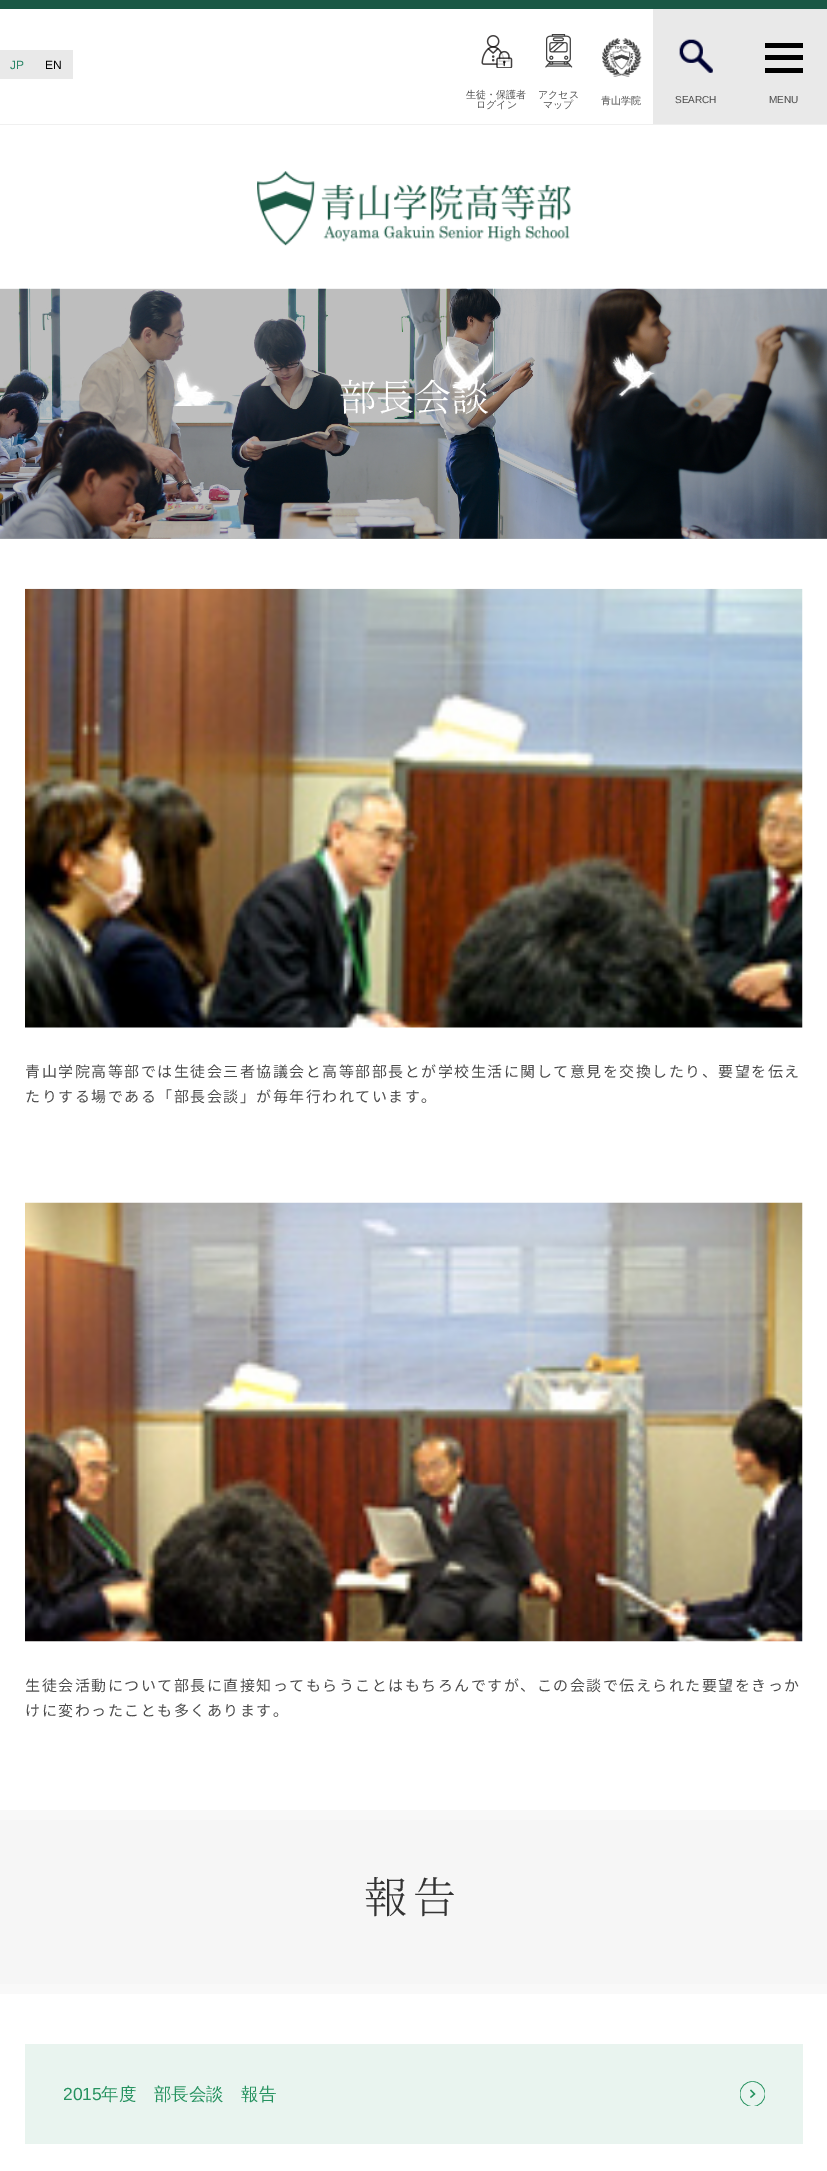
%!PS
<< /PageSize [827 2171] >> setpagedevice
/rgb { 3 { 255 div 3 1 roll } repeat setrgbcolor } def
/font { [ exch dup neg 0 0 3 -1 roll 0 0 ] selectfont } def
/text { moveto show } def
/circle { newpath 0 360 arc closepath } def
/picture { 5 dict begin { /h /w /y /x /name } { exch def } forall
  gsave x y translate w h scale
  w h 8 [w 0 0 h 0 0] name (r) file false 3 colorimage grestore end } def
0 2171 translate 1 -1 scale
4 setmiterlimit
255 255 255 rgb
0 0 827 2171 rectfill
26 88 69 rgb
0 0 827 9 rectfill
240 240 240 rgb
0 124 827 1 rectfill
233 233 233 rgb
0 50 73 29 rectfill
(img_01.rgb) 481 35 32 33 picture
(img_02.rgb) 545 34 28 34 picture
(img_03.rgb) 602 38 40 39 picture
653 9 174 115 rectfill
(img_04.rgb) 679 39 34 34 picture
0 0 0 rgb
765 55 38 5 rectfill
765 43 38 5 rectfill
765 68 38 5 rectfill
240 240 240 rgb
0 288 827 1 rectfill
(img_05.rgb) 257 171 314 75 picture
(img_06.rgb) 0 288 827 251 picture
(img_08.rgb) 25 588 778 440 picture
(img_09.rgb) 25 1202 778 440 picture
246 246 246 rgb
0 1820 827 164 rectfill
249 249 249 rgb
0 1810 827 10 rectfill
0 1984 827 10 rectfill
233 244 239 rgb
25 2044 778 100 rectfill
gsave
740 2081 25 25 rectclip
37 146 95 rgb
0.6 setlinewidth
752.5 2094 12.5 circle stroke
grestore
37 146 95 rgb
1.2 setlinewidth
750.5 2090 moveto 4 4 rlineto -4 3.5 rlineto stroke
/LiberationSans-Regular 12 font
40 132 101 rgb
(JP) 10 69 text
0 0 0 rgb
(EN) 45 69 text
/WenQuanYiZenHei-Medium 10 font
76 76 76 rgb
(生徒・保護者) 466 98 text
(ログイン) 476 108 text
(アクセス) 538 98 text
(マップ) 543 108 text
(青山学院) 601 104 text
/LiberationSans-Regular 10 font
(SEARCH) 675 103 text
(MENU) 769 103 text
/NotoSerifCJKJP-Light 37.5 font
255 255 255 rgb
(部長会談) 339 411 text
(img_07.rgb) 171 338 486 68 picture
/NotoSansCJKJP-Regular 15 font
76 76 76 rgb
25 1077 moveto 1.5 0 (青山学院高等部では生徒会三者協議会と高等部部長とが学校生活に関して意見を交換したり、要望を伝え) ashow
25 1102 moveto 1.5 0 (たりする場である「部長会談」が毎年行われています。) ashow
25 1691 moveto 1.5 0 (生徒会活動について部長に直接知ってもらうことはもちろんですが、この会談で伝えられた要望をきっか) ashow
25 1716 moveto 1.5 0 (けに変わったことも多くあります。) ashow
/NotoSerifCJKJP-Light 43 font
51 51 51 rgb
364 1913 moveto 6 0 (報告) ashow
/LiberationSans-Regular 17.5 font
37 146 95 rgb
(2015) 63 2100 text
/WenQuanYiZenHei-Medium 17.5 font
(年度　部長会談　報告) 101 2100 text
showpage
